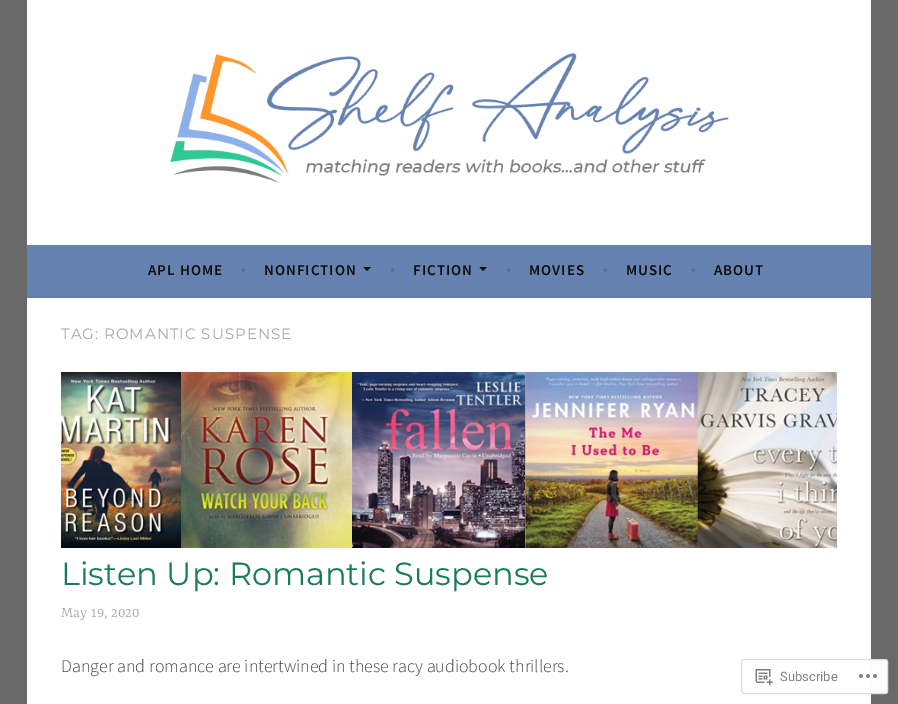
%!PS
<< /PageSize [898 704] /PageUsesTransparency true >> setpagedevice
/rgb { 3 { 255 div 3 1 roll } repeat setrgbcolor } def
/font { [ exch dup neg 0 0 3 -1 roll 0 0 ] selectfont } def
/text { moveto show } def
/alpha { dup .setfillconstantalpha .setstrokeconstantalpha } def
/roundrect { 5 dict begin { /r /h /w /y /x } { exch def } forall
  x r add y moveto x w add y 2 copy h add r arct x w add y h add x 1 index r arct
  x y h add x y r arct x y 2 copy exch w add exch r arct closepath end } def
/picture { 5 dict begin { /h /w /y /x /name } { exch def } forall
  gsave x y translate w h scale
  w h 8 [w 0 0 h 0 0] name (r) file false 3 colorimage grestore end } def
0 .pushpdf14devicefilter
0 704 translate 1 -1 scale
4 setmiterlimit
105 105 105 rgb
0 0 898 704 rectfill
255 255 255 rgb
27 0 844 245 rectfill
(img_01.rgb) 170 53 559 130 picture
101 130 177 rgb
27 245 844 51 rectfill
98 126 172 rgb
27 296 844 2 rectfill
12 12 12 rgb
363.5 267 moveto 7.5 0 rlineto -4 4 rlineto closepath fill
479.5 267 moveto 7.5 0 rlineto -4 4 rlineto closepath fill
255 255 255 rgb
27 298 844 406 rectfill
(img_02.rgb) 61 372 776 176 picture
0.98 alpha
741 659 147 35 3 roundrect fill
220 220 222 rgb
741.5 659.5 146 34 2.5 roundrect stroke
1 alpha
(img_03.rgb) 755 669 18 17 picture
(img_04.rgb) 859 674 18 4 picture
/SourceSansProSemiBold-SemiBold 15 font
12 12 12 rgb
148 275 moveto 1 0 (APL HOME) ashow
/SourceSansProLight-Light 18 font
86 111 150 rgb
(•) 241 275 text
/SourceSansProSemiBold-SemiBold 15 font
12 12 12 rgb
264 275 moveto 1 0 (NONFICTION) ashow
/SourceSansProLight-Light 18 font
86 111 150 rgb
(•) 390 275 text
/SourceSansProSemiBold-SemiBold 15 font
12 12 12 rgb
413 275 moveto 1 0 (FICTION) ashow
/SourceSansProLight-Light 18 font
86 111 150 rgb
(•) 506 275 text
/SourceSansProSemiBold-SemiBold 15 font
12 12 12 rgb
529 275 moveto 1 0 (MOVIES) ashow
/SourceSansProLight-Light 18 font
86 111 150 rgb
(•) 603 275 text
/SourceSansProSemiBold-SemiBold 15 font
12 12 12 rgb
626 275 moveto 1 0 (MUSIC) ashow
/SourceSansProLight-Light 18 font
86 111 150 rgb
(•) 691 275 text
/SourceSansProSemiBold-SemiBold 15 font
12 12 12 rgb
714 275 moveto 1 0 (ABOUT) ashow
/Montserrat-Thin 15 font
168 166 161 rgb
61 339 moveto 1 0 (TAG: ROMANTIC SUSPENSE) ashow
/Montserrat-Thin 32 font
24 123 90 rgb
(Listen Up: Romantic Suspense) 61 585 text
/Yrsa-Light 16 font
168 166 161 rgb
(May 19, 2020) 61 617 text
/SourceSansProLight-Light 18 font
68 67 64 rgb
(Danger and romance are intertwined in these racy audiobook thrillers.) 61 672 text
/Roboto-Regular 13 font
123 127 133 rgb
(Subscribe) 780 681 text
.poppdf14devicefilter showpage
